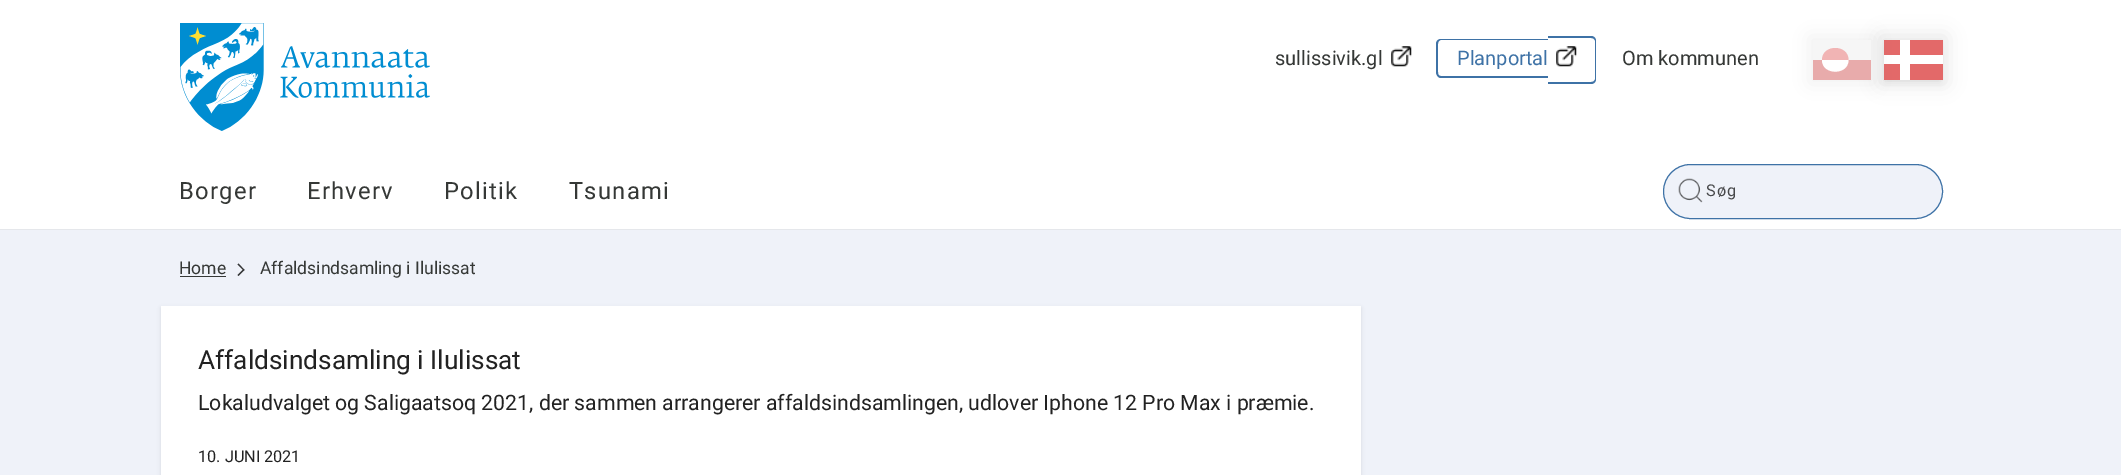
%!PS
<< /PageSize [2121 475] /PageUsesTransparency true >> setpagedevice
/rgb { 3 { 255 div 3 1 roll } repeat setrgbcolor } def
/font { [ exch dup neg 0 0 3 -1 roll 0 0 ] selectfont } def
/text { moveto show } def
/alpha { dup .setfillconstantalpha .setstrokeconstantalpha } def
/roundrect { 5 dict begin { /r /h /w /y /x } { exch def } forall
  x r add y moveto x w add y 2 copy h add r arct x w add y h add x 1 index r arct
  x y h add x y r arct x y 2 copy exch w add exch r arct closepath end } def
/shadow { 12 dict begin { /a /b /q /h /w /y /x } { exch def } forall gsave /was 0 def
  9 -2 -9 { dup b mul 4 div /e exch def 1 sub .425 mul 2.718 exch exp 1 add a .99 .min exch div /now exch def
    1 1 now sub 1 was sub div sub alpha /was now def
    w h .min e 2 mul add 0 gt { x e sub y e sub w e 2 mul add h e 2 mul add
      q e add b .6 mul add w h .min 2 div e add .min 0 .max roundrect fill } if } for grestore end } def
/picture { 5 dict begin { /h /w /y /x /name } { exch def } forall
  gsave x y translate w h scale
  w h 8 [w 0 0 h 0 0] name (r) file false 3 colorimage grestore end } def
0 .pushpdf14devicefilter
0 475 translate 1 -1 scale
4 setmiterlimit
255 255 255 rgb
0 0 2121 475 rectfill
(img_01.rgb) 180 23 250 108 picture
(img_02.rgb) 1391 46 21 21 picture
62 114 166 rgb
1441 39 moveto 107 0 rlineto 0 39 rlineto -107 0 rlineto -3 0 -5 -3 -5 -6 rcurveto 0 -28 rlineto 0 -3 2 -5 5 -5 rcurveto closepath 1441 40 moveto 107 0 rlineto 0 36 rlineto -107 0 rlineto -2 0 -3 -1 -3 -4 rcurveto 0 -28 rlineto 0 -2 1 -4 3 -4 rcurveto closepath eofill
1548 36 moveto 43 0 rlineto 3 0 5 2 5 5 rcurveto 0 38 rlineto 0 3 -2 5 -5 5 rcurveto -43 0 rlineto closepath 1548 38 moveto 43 0 rlineto 2 0 4 1 4 3 rcurveto 0 38 rlineto 0 2 -2 3 -4 3 rcurveto -43 0 rlineto closepath eofill
(img_02.rgb) 1556 46 21 21 picture
0 0 0 rgb
1886 48 54 35 0 4 0.05 shadow
1880 36 66 48 0 9.5 0.1 shadow
255 255 255 rgb
1884 40 59 40 rectfill
227 105 105 rgb
1884 40 16 15 rectfill
1884 64 16 16 rectfill
0 0 0 rgb
1809 36 66 48 0 9.5 0.05 shadow
246 246 246 rgb
1813 40 58 20 rectfill
gsave
1813 40 58 40 rectclip
232 171 171 rgb
1812 82 moveto 0 -22 rlineto 60 0 rlineto 0 22 rlineto -60 0 rlineto fill
grestore
241 180 180 rgb
1848.5 60 moveto 0 -16 -26.5 -16 -26.5 0 rcurveto closepath fill
255 255 255 rgb
1822 60 moveto 0 15.5 26.5 15.5 26.5 0 rcurveto closepath fill
227 105 105 rgb
1910 40 33 15 rectfill
1910 64 33 16 rectfill
229 231 235 rgb
0 229 2121 1 rectfill
239 242 249 rgb
1663 164 280 55 27.5 roundrect fill
(img_03.rgb) 1678 178 25 25 picture
62 114 166 rgb
1663.5 164.5 279 54 27 roundrect stroke
239 242 249 rgb
0 230 2121 245 rectfill
53 56 54 rgb
180 276 46 1 rectfill
52 53 54 rgb
238.5 263.5 moveto 6 6.5 rlineto -1 0.5 rlineto -6 -6 rlineto closepath fill
243.5 269 moveto 1 1 rlineto -6 6 rlineto -1 -1 rlineto closepath fill
0 0 0 rgb
161 308 1200 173 0 2 0.1 shadow
255 255 255 rgb
161 306 1200 169 rectfill
/Roboto-Regular 20 font
53 56 54 rgb
(sullissivik.gl) 1275 65 text
62 114 166 rgb
(Planportal) 1457 65 text
53 56 54 rgb
(Om kommunen) 1622 65 text
/Roboto-Regular 23.75 font
179 199 moveto 1.25 0 (Borger) ashow
307 199 moveto 1.25 0 (Erhverv) ashow
444 199 moveto 1.25 0 (Politik) ashow
569 199 moveto 1.25 0 (Tsunami) ashow
/Roboto-Regular 16.25 font
71 72 74 rgb
1706 196 moveto 1.25 0 (Søg) ashow
/Roboto-Regular 17.5 font
53 56 54 rgb
(Home) 179 274 text
(Affaldsindsamling i Ilulissat) 260 274 text
/Roboto-Regular 26.25 font
34 34 34 rgb
(Affaldsindsamling i Ilulissat) 198 369 text
/Roboto-Regular 21.25 font
(Lokaludvalget og Saligaatsoq 2021, der sammen arrangerer affaldsindsamlingen, udlover Iphone 12 Pro Max i præmie.) 198 410 text
/Roboto-Regular 16.25 font
(10. JUNI 2021) 198 462 text
.poppdf14devicefilter showpage
